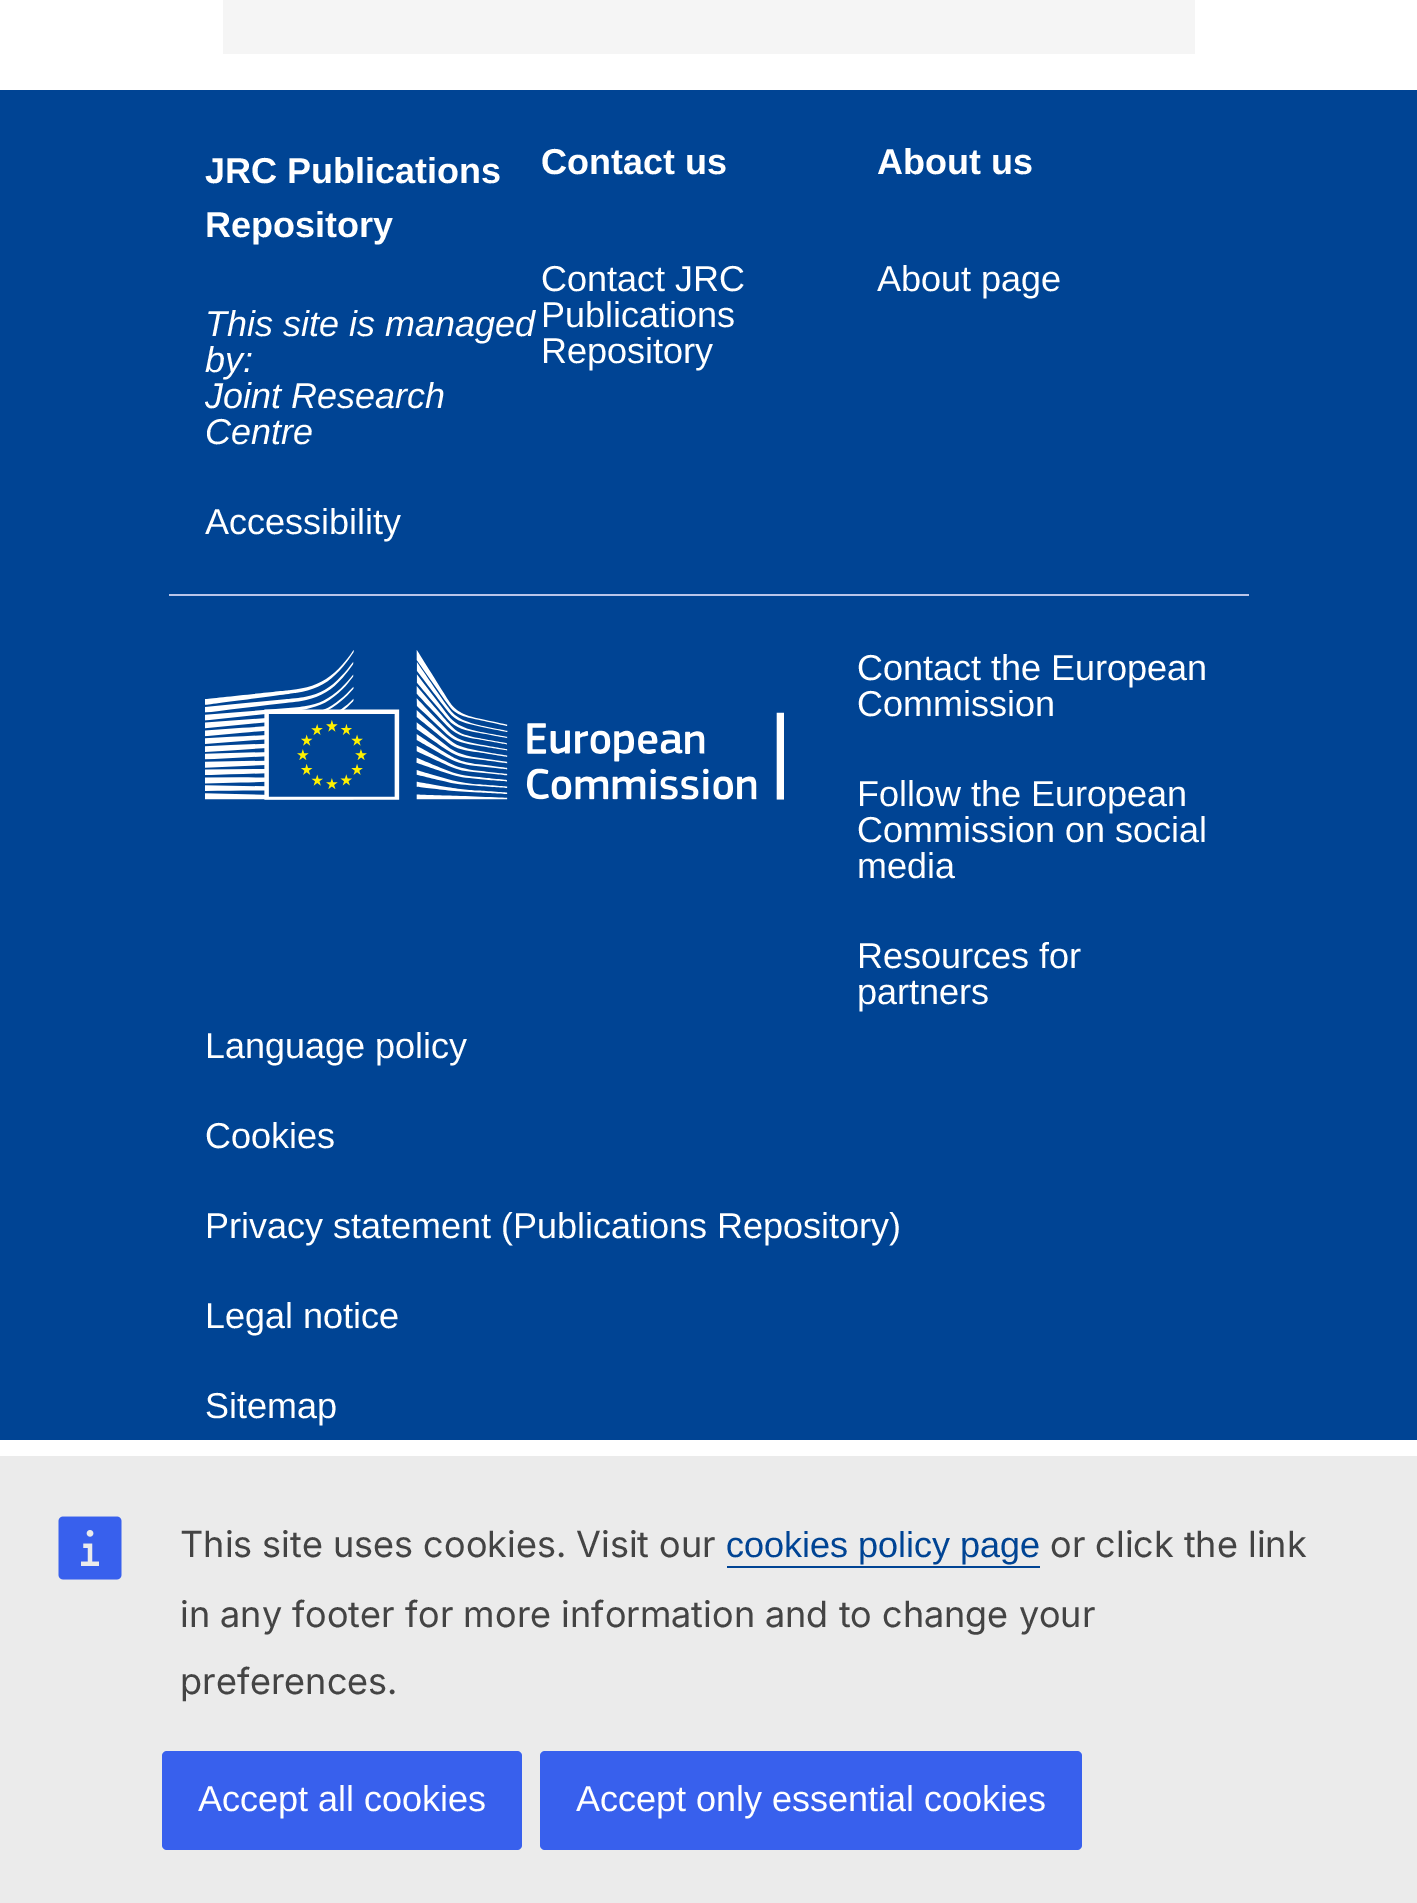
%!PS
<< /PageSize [1417 1903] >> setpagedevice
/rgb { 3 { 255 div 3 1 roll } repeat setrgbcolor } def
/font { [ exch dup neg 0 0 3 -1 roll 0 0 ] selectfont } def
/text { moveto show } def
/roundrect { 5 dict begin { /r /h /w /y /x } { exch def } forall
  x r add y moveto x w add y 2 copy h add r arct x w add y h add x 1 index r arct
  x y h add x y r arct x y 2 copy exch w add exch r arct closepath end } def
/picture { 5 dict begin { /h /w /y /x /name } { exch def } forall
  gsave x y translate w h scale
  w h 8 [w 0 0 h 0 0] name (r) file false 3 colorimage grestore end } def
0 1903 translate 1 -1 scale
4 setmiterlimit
255 255 255 rgb
0 0 1417 1903 rectfill
245 245 245 rgb
223 0 972 54 rectfill
0 68 148 rgb
0 90 1417 1350 rectfill
185 197 233 rgb
169 594 1080 2 rectfill
(img_01.rgb) 205 650 579 150 picture
235 235 235 rgb
0 1456 1417 447 rectfill
(img_02.rgb) 58 1516 64 64 picture
0 68 148 rgb
727 1566 313 2 rectfill
56 96 237 rgb
162 1751 360 99 5 roundrect fill
540 1751 542 99 5 roundrect fill
/LiberationSans-Bold 36 font
255 255 255 rgb
(JRC Publications) 205 183 text
(Repository) 205 237 text
/LiberationSans-Italic 36 font
(This site is managed) 205 336 text
(by:) 205 372 text
(Joint Research) 205 408 text
(Centre) 205 444 text
/LiberationSans-Regular 36 font
(Accessibility) 205 534 text
/LiberationSans-Bold 36 font
(Contact us) 541 174 text
/LiberationSans-Regular 36 font
(Contact JRC) 541 291 text
(Publications) 541 327 text
(Repository) 541 363 text
/LiberationSans-Bold 36 font
(About us) 877 174 text
/LiberationSans-Regular 36 font
(About page) 877 291 text
(Contact the European) 857 680 text
(Commission) 857 716 text
(Follow the European) 857 806 text
(Commission on social) 857 842 text
(media) 857 878 text
(Resources for) 857 968 text
(partners) 857 1004 text
(Language policy) 205 1058 text
(Cookies) 205 1148 text
(Privacy statement \(Publications Repository\)) 205 1238 text
(Legal notice) 205 1328 text
(Sitemap) 205 1418 text
/Inter-Regular 36 font
68 68 68 rgb
(This site uses cookies. Visit our) 180 1557 text
/LiberationSans-Regular 36 font
0 68 148 rgb
(cookies policy page) 726 1557 text
/Inter-Regular 36 font
68 68 68 rgb
(or click the link) 1050 1557 text
(in any footer for more information and to change your) 180 1627 text
(preferences.) 180 1694 text
/LiberationSans-Regular 36 font
255 255 255 rgb
(Accept all cookies) 198 1811 text
(Accept only essential cookies) 576 1811 text
showpage
